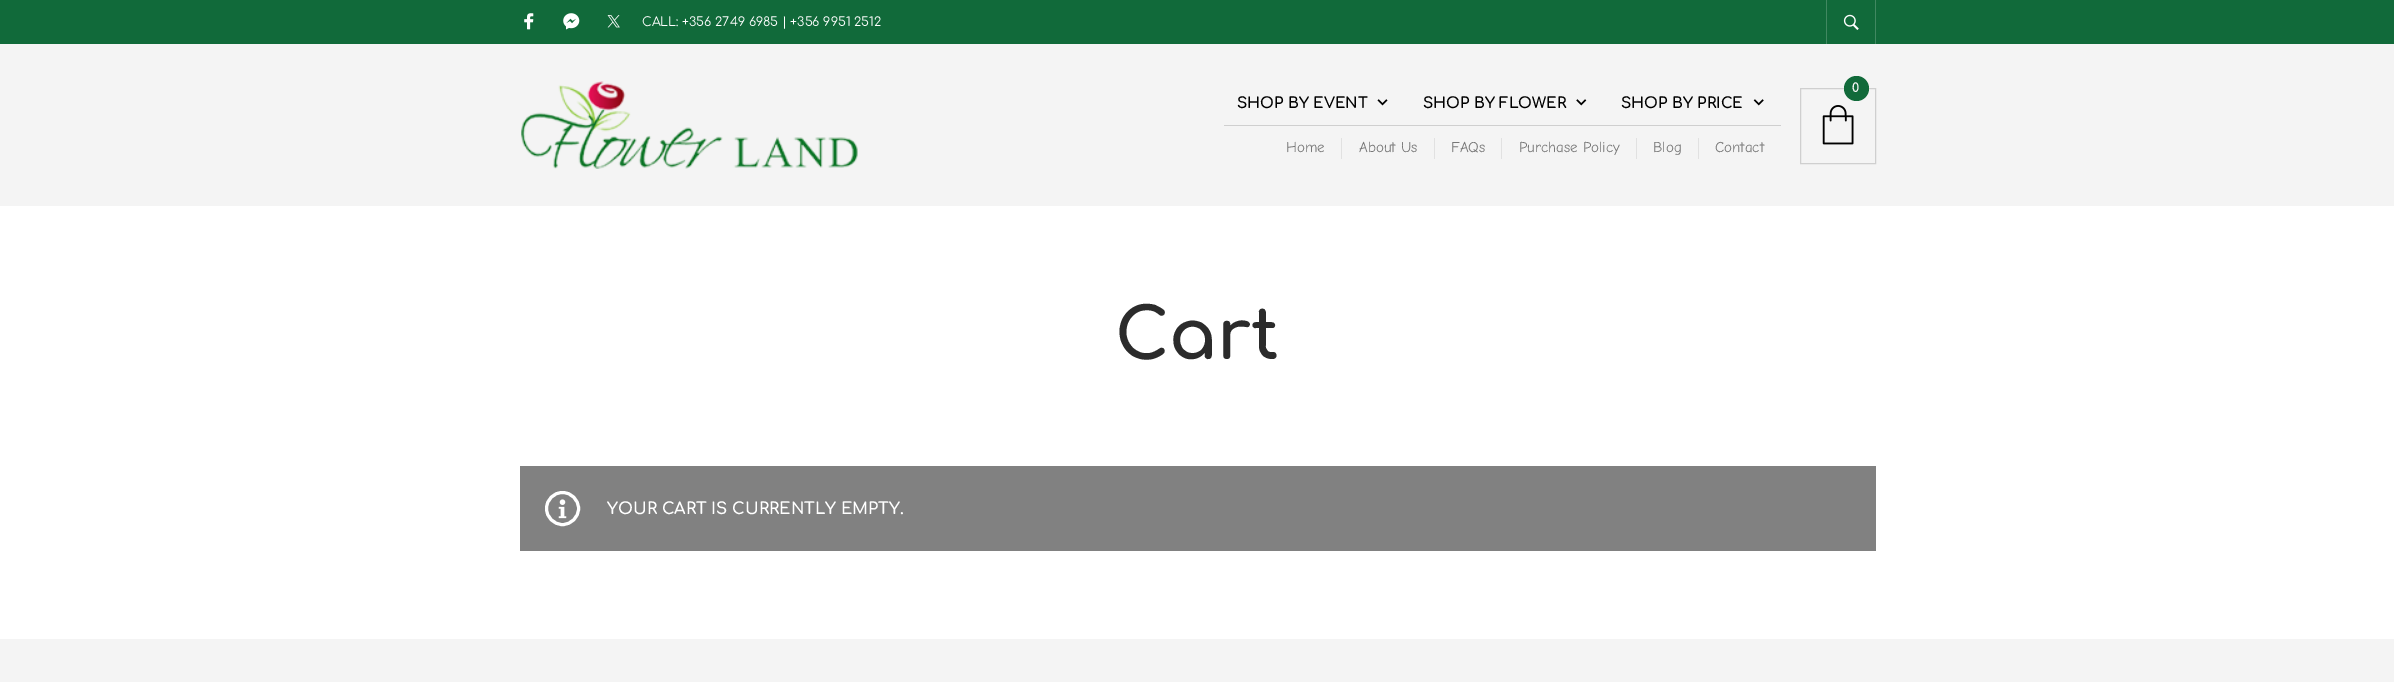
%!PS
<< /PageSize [2394 682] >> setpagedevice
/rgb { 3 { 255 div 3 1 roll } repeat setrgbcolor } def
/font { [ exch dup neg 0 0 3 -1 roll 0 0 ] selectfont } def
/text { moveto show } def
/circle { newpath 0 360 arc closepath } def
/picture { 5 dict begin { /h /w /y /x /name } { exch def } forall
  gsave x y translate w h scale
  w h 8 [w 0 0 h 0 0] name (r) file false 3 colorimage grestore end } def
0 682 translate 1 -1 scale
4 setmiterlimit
255 255 255 rgb
0 0 2394 682 rectfill
244 244 244 rgb
0 44 2394 162 rectfill
17 106 58 rgb
0 0 2394 44 rectfill
(img_01.rgb) 524 13 10 17 picture
(img_02.rgb) 563 13 17 17 picture
(img_03.rgb) 607 15 13 13 picture
65 136 97 rgb
1875 0 1 44 rectfill
1826 0 1 44 rectfill
(img_04.rgb) 1843 14 16 16 picture
(img_05.rgb) 521 81 337 88 picture
(img_06.rgb) 1822 105 32 40 picture
207 207 207 rgb
1800.5 88.5 75 75 rectstroke
17 106 58 rgb
1856.5 88.5 12.5 circle fill
207 207 207 rgb
1224 125 557 1 rectfill
(img_07.rgb) 1377 99 11 7 picture
(img_08.rgb) 1576 99 11 7 picture
(img_09.rgb) 1753 99 11 7 picture
225 225 225 rgb
1341 138 1 21 rectfill
1434 138 1 21 rectfill
1501 138 1 21 rectfill
1636 138 1 21 rectfill
1698 138 1 21 rectfill
129 129 129 rgb
520 466 1356 85 rectfill
(img_10.rgb) 558 499 9 20 picture
255 255 255 rgb
3 setlinewidth
562.5 508.5 16 circle stroke
244 244 244 rgb
0 639 2394 43 rectfill
/Comfortaa-Regular 12.5 font
255 255 255 rgb
(CALL: +356 2749 6985 | +356 9951 2512) 642 26 text
/Comfortaa-Bold 12.5 font
244 244 244 rgb
(0) 1852 92 text
/Comfortaa-Bold 15 font
0 0 0 rgb
(SHOP BY EVENT) 1237 108 text
(SHOP BY FLOWER) 1423 108 text
(SHOP BY PRICE) 1621 108 text
/ComicNeue-Regular 15 font
119 119 119 rgb
(Home) 1286 152 text
(About Us) 1359 152 text
(FAQs) 1451 152 text
(Purchase Policy) 1519 152 text
(Blog) 1653 152 text
(Contact) 1715 152 text
/Comfortaa-Bold 70 font
43 43 43 rgb
(Cart) 1115 359 text
/Comfortaa-Bold 16.25 font
255 255 255 rgb
(YOUR CART IS CURRENTLY EMPTY.) 607 514 text
showpage
